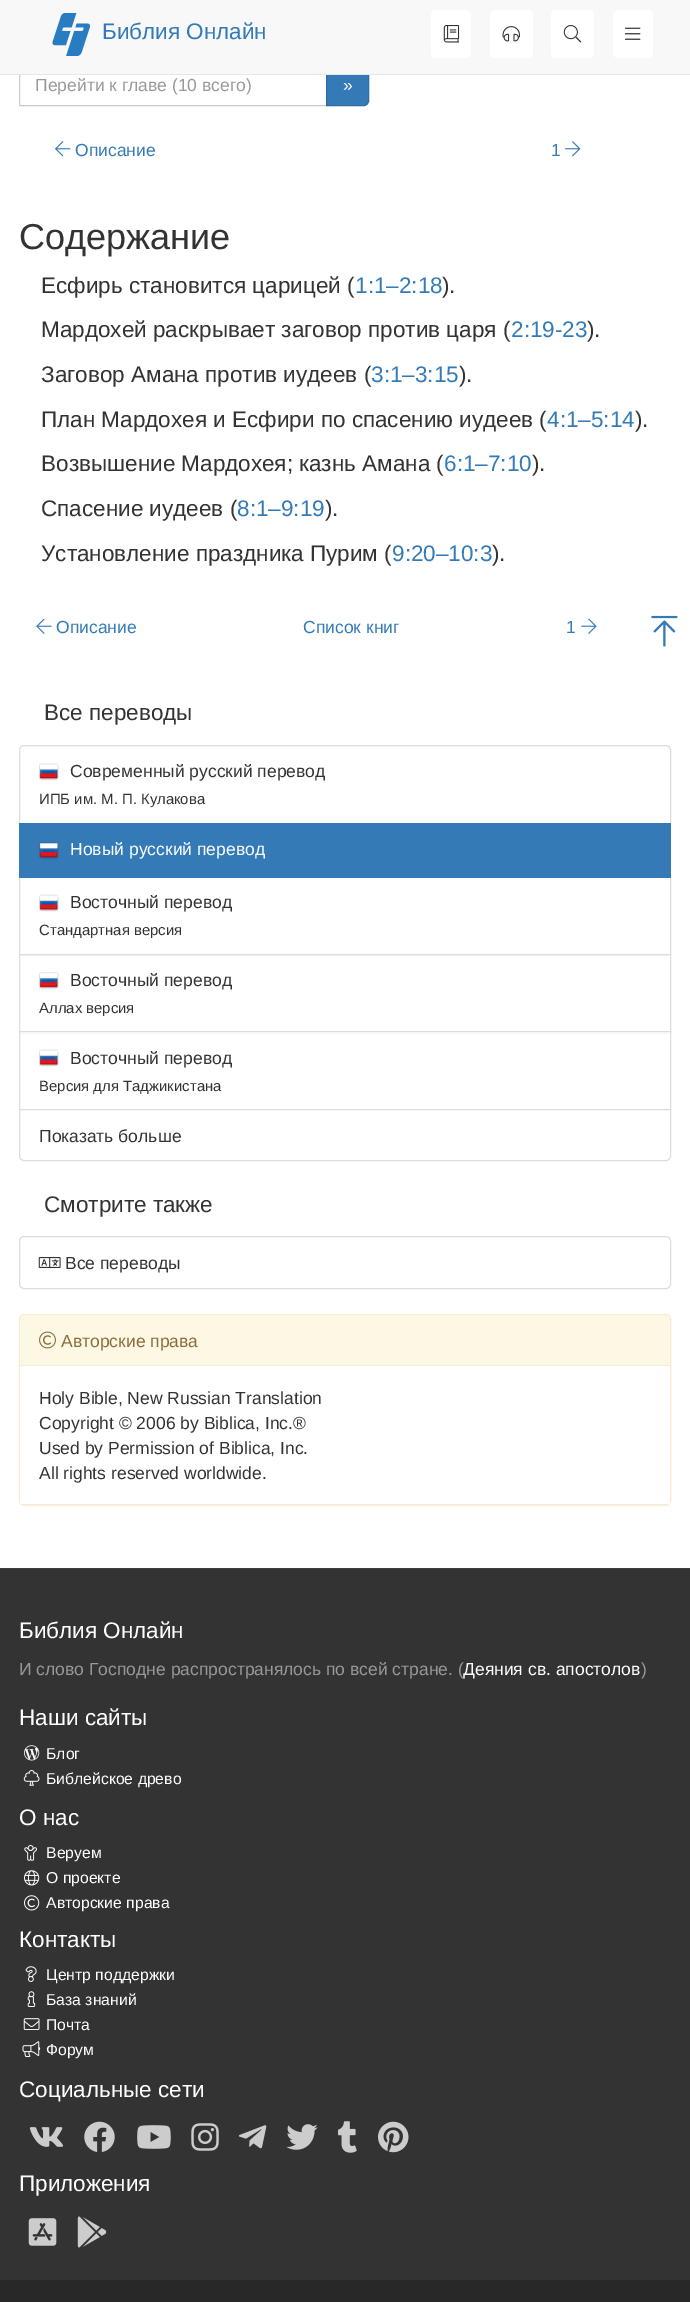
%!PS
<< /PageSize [690 2302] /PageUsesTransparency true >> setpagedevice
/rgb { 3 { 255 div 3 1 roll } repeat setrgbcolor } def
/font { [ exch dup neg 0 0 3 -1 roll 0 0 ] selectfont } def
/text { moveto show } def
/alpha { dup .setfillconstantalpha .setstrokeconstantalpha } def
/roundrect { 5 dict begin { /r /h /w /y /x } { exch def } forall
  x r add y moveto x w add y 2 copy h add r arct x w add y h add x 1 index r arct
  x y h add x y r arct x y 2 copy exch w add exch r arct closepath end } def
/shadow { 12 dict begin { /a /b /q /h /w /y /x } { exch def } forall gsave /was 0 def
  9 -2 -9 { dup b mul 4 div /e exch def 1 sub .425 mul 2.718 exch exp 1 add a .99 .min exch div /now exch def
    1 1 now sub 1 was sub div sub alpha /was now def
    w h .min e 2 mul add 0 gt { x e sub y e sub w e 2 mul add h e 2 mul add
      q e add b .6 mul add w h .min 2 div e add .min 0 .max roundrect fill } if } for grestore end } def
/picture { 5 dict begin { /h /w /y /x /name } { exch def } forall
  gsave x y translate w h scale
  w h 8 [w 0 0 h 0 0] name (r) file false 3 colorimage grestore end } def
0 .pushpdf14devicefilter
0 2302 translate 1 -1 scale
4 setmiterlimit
255 255 255 rgb
0 0 690 2302 rectfill
204 204 204 rgb
19.5 64.5 308 41 rectstroke
51 122 183 rgb
326.5 64.5 moveto 37.5 0 rlineto 2.5 0 4.5 2 4.5 4.5 rcurveto 0 32 rlineto 0 2.5 -2 4.5 -4.5 4.5 rcurveto -37.5 0 rlineto closepath gsave fill grestore
46 109 164 rgb
stroke
248 248 248 rgb
0 0 690 74 rectfill
231 231 231 rgb
0 74 690 1 rectfill
(img_01.rgb) 52 13 39 43 picture
255 255 255 rgb
431 10 40 48 5 roundrect fill
(img_02.rgb) 443 25 17 18 picture
490 10 43 48 5 roundrect fill
(img_03.rgb) 502 26 18 16 picture
551 10 43 48 5 roundrect fill
(img_04.rgb) 563 25 19 18 picture
613 10 40 48 5 roundrect fill
(img_05.rgb) 625 27 16 13 picture
(img_06.rgb) 55 141 16 16 picture
(img_07.rgb) 565 141 16 16 picture
(img_08.rgb) 36 618 16 16 picture
(img_09.rgb) 581 618 16 16 picture
(img_10.rgb) 651 615 27 32 picture
221 221 221 rgb
24 745.5 moveto 642 0 rlineto 2.5 0 4.5 2 4.5 4.5 rcurveto 0 73.5 rlineto -651 0 rlineto 0 -73.5 rlineto 0 -2.5 2 -4.5 4.5 -4.5 rcurveto closepath stroke
(img_11.rgb) 39 763 20 18 picture
19.5 876.5 651 78 rectstroke
51 122 183 rgb
19 823 652 55 rectfill
(img_12.rgb) 39 842 20 18 picture
(img_13.rgb) 39 894 20 18 picture
221 221 221 rgb
19.5 954.5 651 78 rectstroke
(img_14.rgb) 39 972 20 18 picture
255 255 255 rgb
20 1032 650 1 rectfill
221 221 221 rgb
19.5 1031.5 651 78 rectstroke
(img_13.rgb) 39 1049 20 18 picture
255 255 255 rgb
19.5 1109.5 moveto 651 0 rlineto 0 46.5 rlineto 0 2.5 -2 4.5 -4.5 4.5 rcurveto -642 0 rlineto -2.5 0 -4.5 -2 -4.5 -4.5 rcurveto closepath gsave fill grestore
221 221 221 rgb
stroke
19.5 1236.5 651 52 4.5 roundrect stroke
(img_15.rgb) 38 1257 23 11 picture
0 0 0 rgb
19 1315 652 191 5 0.5 0.05 shadow
250 235 204 rgb
19.5 1314.5 651 190 4.5 roundrect stroke
252 248 227 rgb
24 1315 moveto 642 0 rlineto 2 0 4 2 4 4 rcurveto 0 47 rlineto -650 0 rlineto 0 -47 rlineto 0 -2 2 -4 4 -4 rcurveto closepath fill
250 235 204 rgb
20 1365 650 1 rectfill
(img_16.rgb) 39 1331 17 18 picture
255 255 255 rgb
20 1366 650 138 rectfill
51 51 51 rgb
0 1569 690 711 rectfill
63 63 63 rgb
0 1568 690 1 rectfill
(img_17.rgb) 24 1745 16 16 picture
(img_18.rgb) 23 1770 17 16 picture
(img_19.rgb) 24 1845 13 16 picture
(img_20.rgb) 24 1870 16 16 picture
(img_21.rgb) 24 1895 16 16 picture
(img_22.rgb) 25 1966 12 16 picture
(img_23.rgb) 27 1991 9 16 picture
(img_24.rgb) 23 2018 17 12 picture
(img_25.rgb) 22 2041 19 16 picture
(img_26.rgb) 29 2127 34 20 picture
(img_27.rgb) 84 2121 31 31 picture
(img_28.rgb) 137 2125 34 24 picture
(img_29.rgb) 191 2123 28 28 picture
(img_30.rgb) 238 2125 29 24 picture
(img_31.rgb) 286 2124 32 26 picture
(img_32.rgb) 338 2121 19 32 picture
(img_33.rgb) 378 2121 31 32 picture
(img_34.rgb) 28 2218 29 28 picture
(img_35.rgb) 77 2216 30 32 picture
40 40 40 rgb
0 2280 690 22 rectfill
/LiberationSans-Regular 22.5 font
51 122 183 rgb
(Библия Онлайн) 102 39 text
/LiberationSans-Regular 17.5 font
153 151 156 rgb
(Перейти к главе \(10 всего\)) 35 91 text
255 255 255 rgb
(») 343 91 text
51 122 183 rgb
(Описание) 75 156 text
(1) 551 156 text
/LiberationSans-Regular 36 font
51 51 51 rgb
(Содержание) 19 249 text
/LiberationSans-Regular 22.5 font
(Есфирь становится царицей \() 41 293 text
51 122 183 rgb
(1:1–2:18) 355 293 text
51 51 51 rgb
(\).) 442 293 text
(Мардохей раскрывает заговор против царя \() 41 337 text
51 122 183 rgb
(2:19-23) 511 337 text
51 51 51 rgb
(\).) 587 337 text
(Заговор Амана против иудеев \() 41 382 text
51 122 183 rgb
(3:1–3:15) 371 382 text
51 51 51 rgb
(\).) 459 382 text
(План Мардохея и Есфири по спасению иудеев \() 41 427 text
51 122 183 rgb
(4:1–5:14) 547 427 text
51 51 51 rgb
(\).) 635 427 text
(Возвышение Мардохея; казнь Амана \() 41 471 text
51 122 183 rgb
(6:1–7:10) 444 471 text
51 51 51 rgb
(\).) 532 471 text
(Спасение иудеев \() 41 516 text
51 122 183 rgb
(8:1–9:19) 237 516 text
51 51 51 rgb
(\).) 325 516 text
(Установление праздника Пурим \() 41 561 text
51 122 183 rgb
(9:20–10:3) 392 561 text
51 51 51 rgb
(\).) 492 561 text
/LiberationSans-Regular 17.5 font
51 122 183 rgb
(Описание) 56 633 text
(Список книг) 303 633 text
(1) 566 633 text
/LiberationSans-Regular 22.5 font
51 51 51 rgb
(Все переводы) 44 720 text
/LiberationSans-Regular 17.5 font
(Современный русский перевод) 70 777 text
/LiberationSans-Regular 14.9 font
(ИПБ им. М. П. Кулакова) 39 804 text
/LiberationSans-Regular 17.5 font
255 255 255 rgb
(Новый русский перевод) 70 855 text
51 51 51 rgb
(Восточный перевод) 70 908 text
/LiberationSans-Regular 14.9 font
(Стандартная версия) 39 935 text
/LiberationSans-Regular 17.5 font
(Восточный перевод) 70 986 text
/LiberationSans-Regular 14.9 font
(Аллах версия) 39 1013 text
/LiberationSans-Regular 17.5 font
(Восточный перевод) 70 1064 text
/LiberationSans-Regular 14.9 font
(Версия для Таджикистана) 39 1091 text
/LiberationSans-Regular 17.5 font
(Показать больше) 39 1142 text
/LiberationSans-Regular 22.5 font
(Смотрите также) 44 1212 text
/LiberationSans-Regular 17.5 font
(Все переводы) 65 1269 text
138 109 59 rgb
(Авторские права) 61 1347 text
51 51 51 rgb
(Holy Bible, New Russian Translation) 39 1404 text
(Copyright © 2006 by Biblica, Inc.®) 39 1429 text
(Used by Permission of Biblica, Inc.) 39 1454 text
(All rights reserved worldwide.) 39 1479 text
/LiberationSans-Regular 22.5 font
255 255 255 rgb
(Библия Онлайн) 19 1638 text
/LiberationSans-Regular 17.5 font
153 151 156 rgb
(И слово Господне распространялось по всей стране. \() 19 1675 text
255 255 255 rgb
(Деяния св. aпостолов) 463 1675 text
153 151 156 rgb
(\)) 641 1675 text
/LiberationSans-Regular 22.5 font
255 255 255 rgb
(Наши сайты) 19 1725 text
/LiberationSans-Regular 15.75 font
(Блог) 46 1759 text
(Библейское древо) 46 1784 text
/LiberationSans-Regular 22.5 font
(О нас) 19 1825 text
/LiberationSans-Regular 15.75 font
(Веруем) 46 1858 text
(О проекте) 46 1883 text
(Авторские права) 46 1908 text
/LiberationSans-Regular 22.5 font
(Контакты) 19 1947 text
/LiberationSans-Regular 15.75 font
(Центр поддержки) 46 1980 text
(База знаний) 46 2005 text
(Почта) 46 2030 text
(Форум) 46 2055 text
/LiberationSans-Regular 22.5 font
(Социальные сети) 19 2097 text
(Приложения) 19 2191 text
.poppdf14devicefilter showpage
